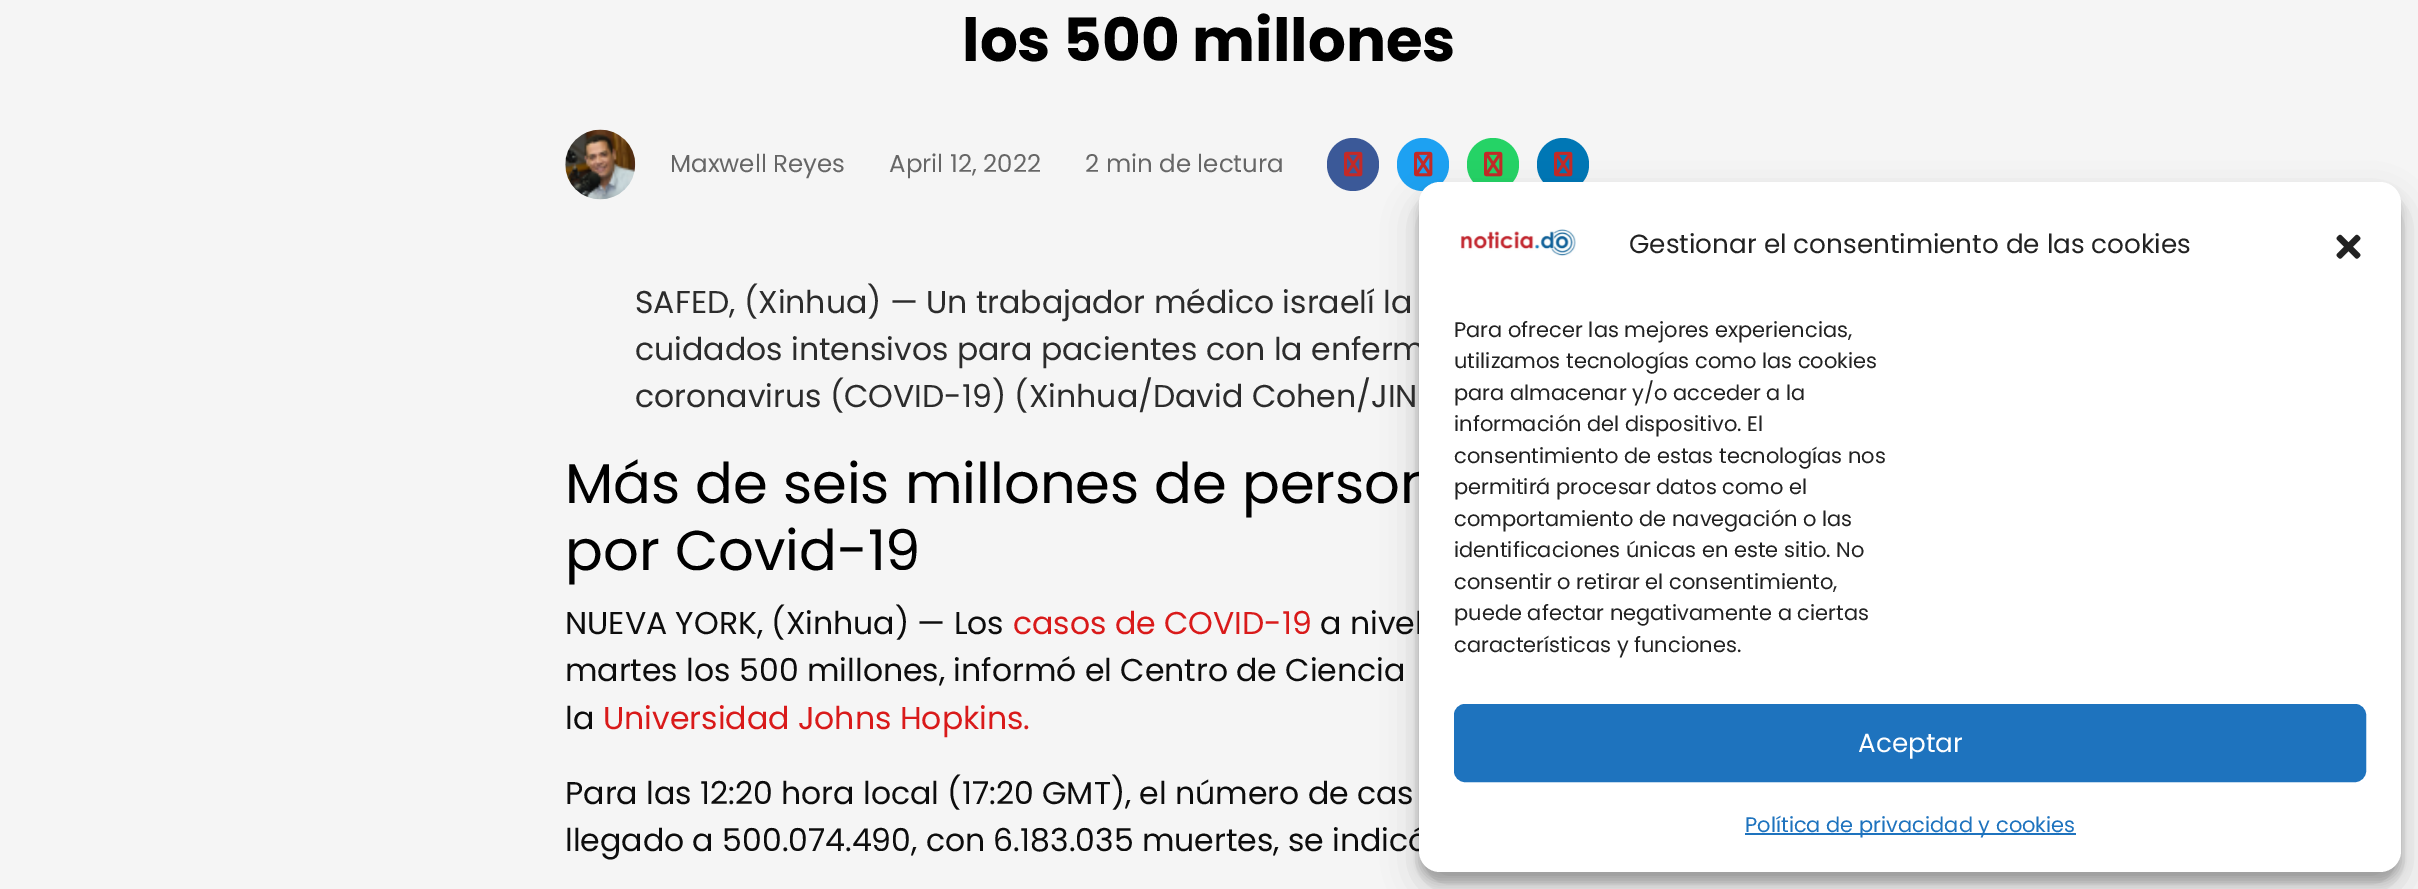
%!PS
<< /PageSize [2418 889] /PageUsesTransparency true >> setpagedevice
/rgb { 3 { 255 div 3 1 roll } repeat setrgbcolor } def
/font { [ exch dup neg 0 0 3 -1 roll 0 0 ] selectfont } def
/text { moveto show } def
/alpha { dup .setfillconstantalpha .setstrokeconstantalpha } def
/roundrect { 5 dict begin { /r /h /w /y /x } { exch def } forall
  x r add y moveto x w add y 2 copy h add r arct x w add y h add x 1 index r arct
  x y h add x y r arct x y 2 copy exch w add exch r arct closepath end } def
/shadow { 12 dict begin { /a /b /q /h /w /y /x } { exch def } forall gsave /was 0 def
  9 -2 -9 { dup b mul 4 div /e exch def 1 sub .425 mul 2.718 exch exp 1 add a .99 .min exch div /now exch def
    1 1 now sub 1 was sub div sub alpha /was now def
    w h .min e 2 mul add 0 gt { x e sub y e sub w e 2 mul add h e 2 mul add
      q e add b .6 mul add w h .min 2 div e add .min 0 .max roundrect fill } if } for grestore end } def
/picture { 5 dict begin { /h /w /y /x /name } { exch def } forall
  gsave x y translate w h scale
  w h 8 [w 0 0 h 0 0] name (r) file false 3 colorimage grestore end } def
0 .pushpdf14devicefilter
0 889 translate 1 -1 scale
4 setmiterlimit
245 245 245 rgb
0 0 2418 889 rectfill
(img_01.rgb) 565 129 71 71 picture
59 89 152 rgb
1327 138 52 53 26 roundrect fill
(img_02.rgb) 1344 151 19 26 picture
29 161 242 rgb
1397 138 52 53 26 roundrect fill
(img_03.rgb) 1414 151 19 26 picture
37 211 102 rgb
1467 138 52 53 26 roundrect fill
(img_04.rgb) 1484 151 19 26 picture
0 119 181 rgb
1537 138 52 53 26 roundrect fill
(img_05.rgb) 1554 151 19 26 picture
0 0 0 rgb
1419 193 982 689 21 5 0.23 shadow
1419 200 982 689 21 17.5 0.19 shadow
/Poppins-Bold 59.5 font
(los 500 millones) 962 61 text
/Poppins-Regular 24.5 font
102 102 102 rgb
(Maxwell Reyes) 670 172 text
(April 12, 2022) 889 172 text
(2 min de lectura) 1085 172 text
/Poppins-Regular 31.5 font
44 44 44 rgb
(SAFED, \(Xinhua\) — Un trabajador médico israelí la) 635 313 text
(cuidados intensivos para pacientes con la enferm) 635 360 text
(coronavirus \(COVID-19\) \(Xinhua/David Cohen/JIN) 635 407 text
/Poppins-Regular 56 font
0 0 0 rgb
(Más de seis millones de person) 565 503 text
(por Covid-19) 565 570 text
/Poppins-Regular 31.5 font
13 13 13 rgb
(NUEVA YORK, \(Xinhua\) — Los) 565 634 text
217 26 26 rgb
(casos de COVID-19) 1013 634 text
13 13 13 rgb
(a nivel) 1320 634 text
(martes los 500 millones, informó el Centro de Ciencia) 565 681 text
(la) 565 729 text
217 26 26 rgb
(Universidad Johns Hopkins.) 603 729 text
13 13 13 rgb
(Para las 12:20 hora local \(17:20 GMT\), el número de cas) 565 804 text
(llegado a 500.074.490, con 6.183.035 muertes, se indicó) 565 851 text
255 255 255 rgb
1419 182 982 690 21 roundrect fill
(img_06.rgb) 1460 229 116 27 picture
/Poppins-Regular 26.25 font
34 34 34 rgb
(Gestionar el consentimiento de las cookies) 1629 253 text
(img_07.rgb) 2336 234 25 25 picture
/Poppins-Regular 21 font
(Para ofrecer las mejores experiencias,) 1454 337 text
(utilizamos tecnologías como las cookies) 1454 368 text
(para almacenar y/o acceder a la) 1454 400 text
(información del dispositivo. El) 1454 431 text
(consentimiento de estas tecnologías nos) 1454 463 text
(permitirá procesar datos como el) 1454 494 text
(comportamiento de navegación o las) 1454 526 text
(identificaciones únicas en este sitio. No) 1454 557 text
(consentir o retirar el consentimiento,) 1454 589 text
(puede afectar negativamente a ciertas) 1454 620 text
(características y funciones.) 1454 652 text
30 115 190 rgb
1455 705 910 76 10 roundrect gsave fill grestore
2 setlinewidth
stroke
/Poppins-Regular 26.25 font
255 255 255 rgb
(Aceptar) 1858 752 text
30 115 190 rgb
1745 833 331 2 rectfill
/Poppins-Regular 21 font
(Política de privacidad y cookies) 1745 832 text
.poppdf14devicefilter showpage
